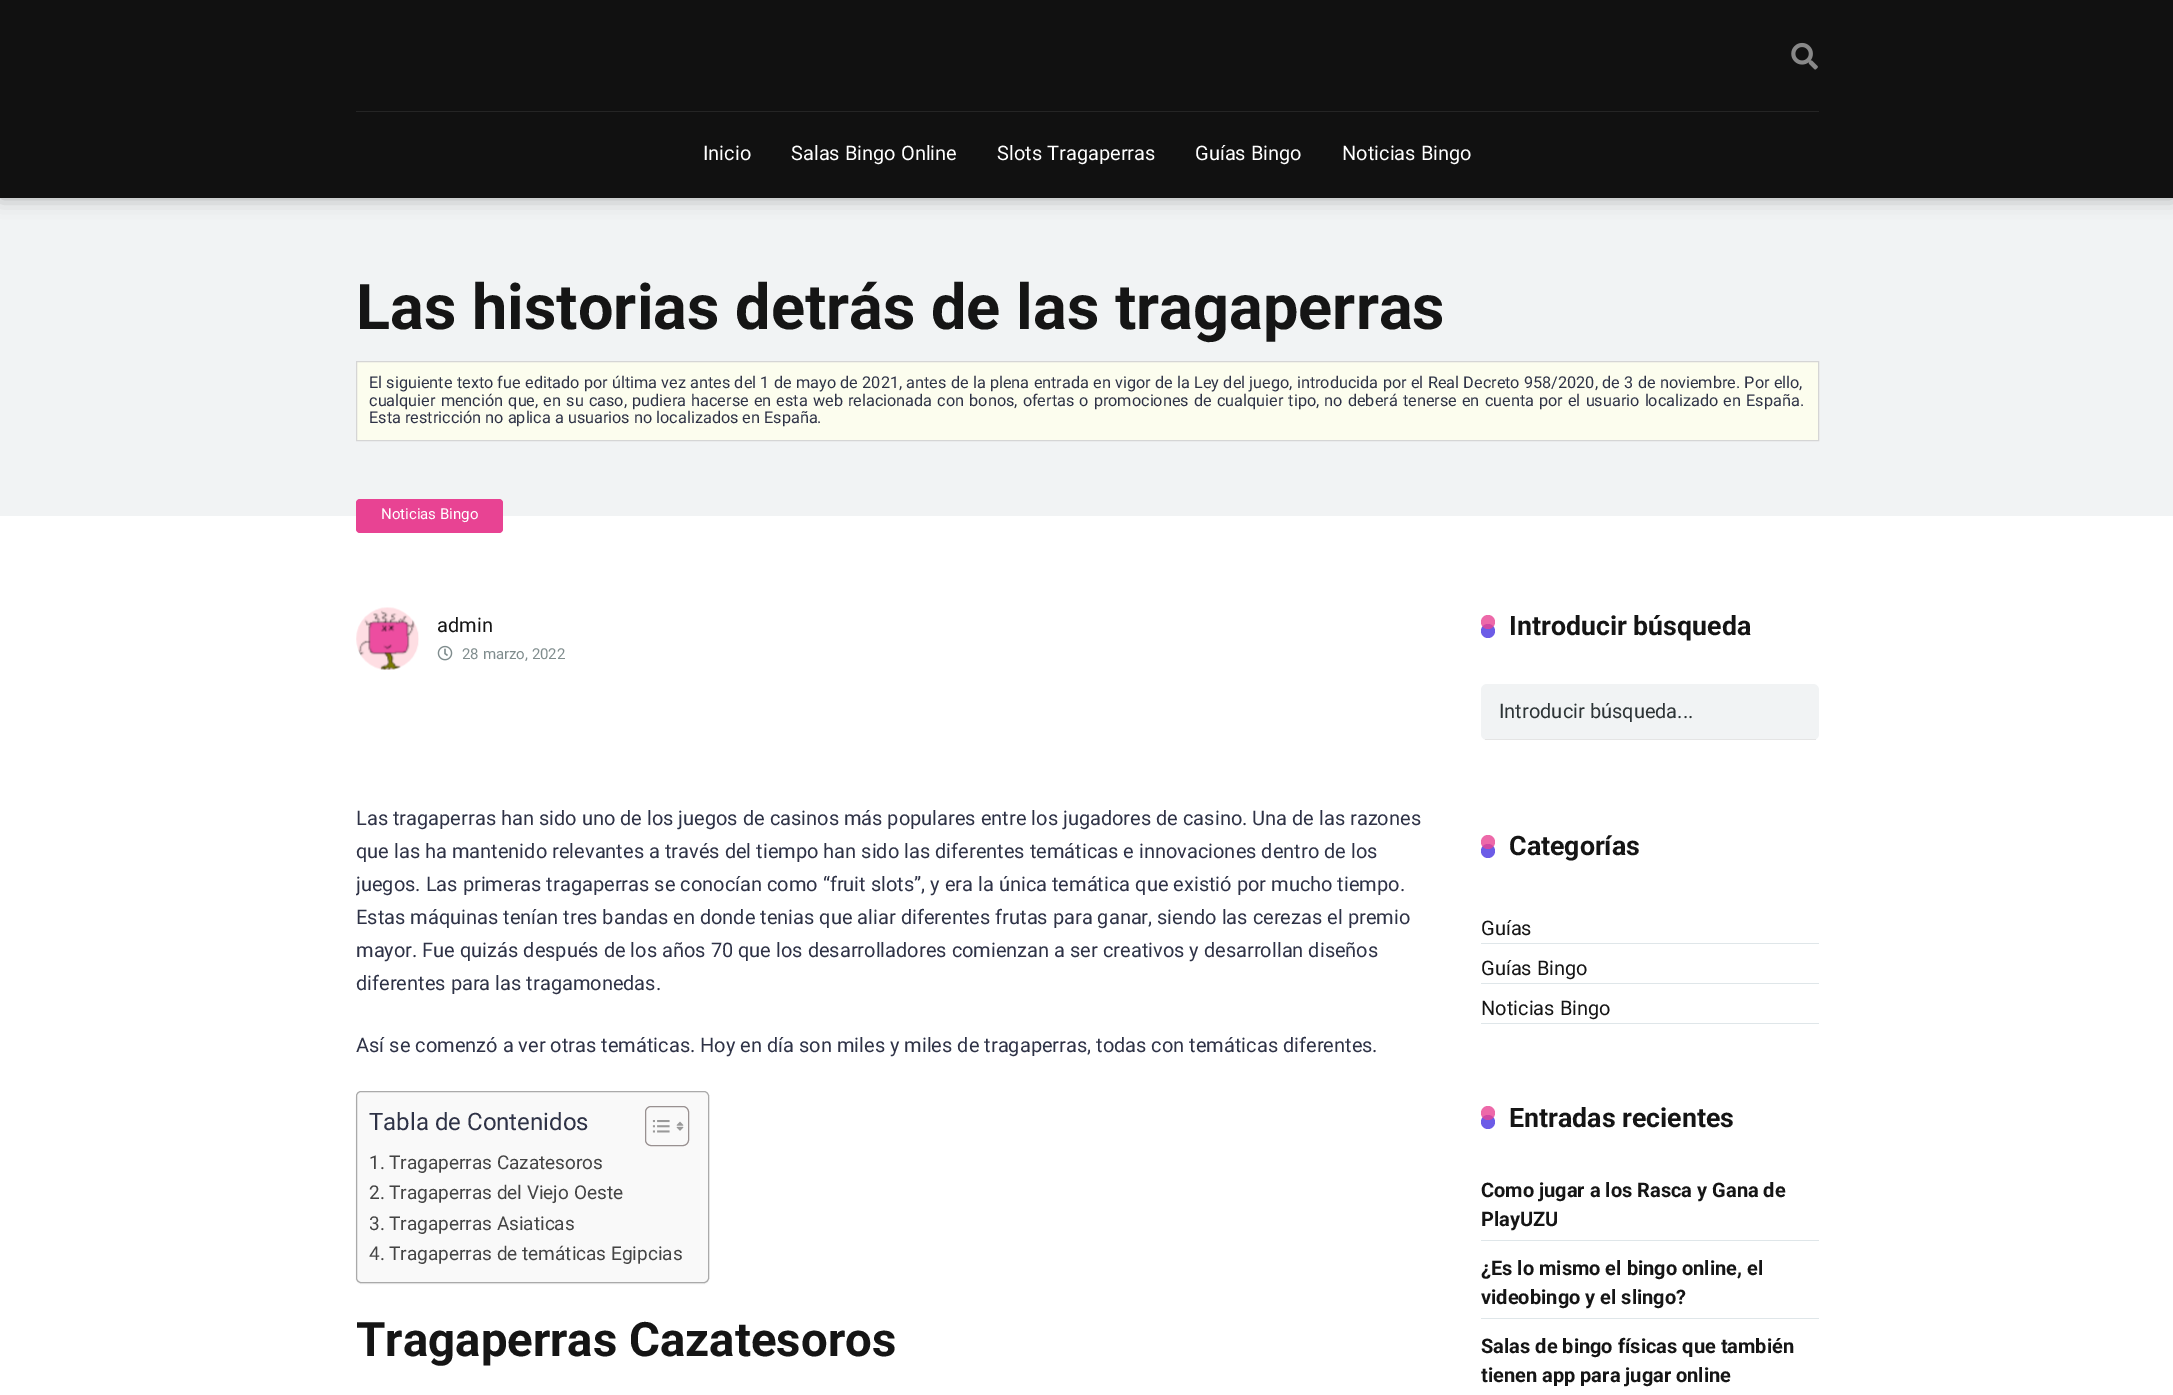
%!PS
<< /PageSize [2173 1395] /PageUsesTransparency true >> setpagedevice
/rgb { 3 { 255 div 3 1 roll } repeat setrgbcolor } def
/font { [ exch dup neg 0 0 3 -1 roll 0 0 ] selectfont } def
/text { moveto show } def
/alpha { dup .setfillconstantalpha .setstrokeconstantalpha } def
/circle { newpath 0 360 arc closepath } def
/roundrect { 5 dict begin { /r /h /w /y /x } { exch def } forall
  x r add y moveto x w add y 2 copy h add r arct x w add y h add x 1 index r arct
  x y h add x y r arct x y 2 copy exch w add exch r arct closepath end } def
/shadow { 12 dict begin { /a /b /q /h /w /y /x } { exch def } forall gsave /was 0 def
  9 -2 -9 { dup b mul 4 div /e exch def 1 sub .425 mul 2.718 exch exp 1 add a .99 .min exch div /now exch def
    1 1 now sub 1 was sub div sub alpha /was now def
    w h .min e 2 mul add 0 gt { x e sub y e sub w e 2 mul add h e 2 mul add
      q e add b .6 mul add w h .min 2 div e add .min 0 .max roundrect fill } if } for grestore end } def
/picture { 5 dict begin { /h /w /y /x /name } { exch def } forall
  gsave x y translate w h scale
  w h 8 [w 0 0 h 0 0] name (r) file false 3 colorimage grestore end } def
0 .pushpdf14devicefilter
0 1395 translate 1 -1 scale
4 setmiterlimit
255 255 255 rgb
0 0 2173 1395 rectfill
241 243 244 rgb
0 198 2173 318 rectfill
0 0 0 rgb
0 0 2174 198 0 9.5 0.3 shadow
17 17 17 rgb
0 0 2173 198 rectfill
37 37 37 rgb
356 111 1463 1 rectfill
(img_01.rgb) 1791 42 27 28 picture
252 253 238 rgb
356.5 361.5 moveto 1462 0 rlineto 0 79 rlineto -1462 0 rlineto closepath gsave fill grestore
213 213 213 rgb
stroke
232 67 147 rgb
356 499 147 34 4 roundrect fill
(img_02.rgb) 356 607 63 63 picture
(img_03.rgb) 437 645 16 16 picture
0 0 0 rgb
356 1093 353 191 5 0.5 0.05 shadow
249 249 249 rgb
356.5 1091.5 352 191 4.5 roundrect gsave fill grestore
170 170 170 rgb
stroke
153 145 145 rgb
645.5 1106.5 43 39 5.5 roundrect stroke
(img_04.rgb) 652 1120 18 13 picture
(img_05.rgb) 676 1121 8 10 picture
108 92 231 rgb
1488 631 7 circle fill
0.8 alpha
232 67 147 rgb
1488 622 7 circle fill
1 alpha
241 243 244 rgb
1481 684 338 56 6 roundrect fill
228 228 228 rgb
1485 739 331 1 rectfill
108 92 231 rgb
1488 851 7 circle fill
0.8 alpha
232 67 147 rgb
1488 842 7 circle fill
1 alpha
223 230 233 rgb
1481 943 338 1 rectfill
1481 983 338 1 rectfill
1481 1023 338 1 rectfill
108 92 231 rgb
1488 1122 7 circle fill
0.8 alpha
232 67 147 rgb
1488 1113 7 circle fill
1 alpha
223 230 233 rgb
1481 1240 338 1 rectfill
1481 1318 338 1 rectfill
/Roboto-Regular 20 font
255 255 255 rgb
(Inicio) 703 160 text
(Salas Bingo Online) 791 160 text
(Slots Tragaperras) 997 160 text
(Guías Bingo) 1195 160 text
(Noticias Bingo) 1342 160 text
/Roboto-Bold 63.1 font
21 21 21 rgb
(Las historias detrás de las tragaperras) 356 329 text
/Roboto-Regular 16.25 font
46 50 70 rgb
369 388 moveto 0.25 0 32 (El siguiente texto fue editado por última vez antes del 1 de mayo de 2021, antes de la plena entrada en vigor de la Ley del juego, introducida por el Real Decreto 958/2020, de 3 de noviembre. Por ello,) widthshow
369 406 moveto 1.1 0 32 (cualquier mención que, en su caso, pudiera hacerse en esta web relacionada con bonos, ofertas o promociones de cualquier tipo, no deberá tenerse en cuenta por el usuario localizado en España.) widthshow
(Esta restricción no aplica a usuarios no localizados en España.) 369 423 text
/Roboto-Regular 15 font
255 255 255 rgb
(Noticias Bingo) 381 519 text
/Roboto-Regular 20 font
21 21 21 rgb
(admin) 437 632 text
/Roboto-Regular 15 font
127 140 141 rgb
(28 marzo, 2022) 462 659 text
/Roboto-Regular 20 font
46 50 70 rgb
(Las tragaperras han sido uno de los juegos de casinos más populares entre los jugadores de casino. Una de las razones) 356 825 text
(que las ha mantenido relevantes a través del tiempo han sido las diferentes temáticas e innovaciones dentro de los) 356 858 text
gsave
356 803 1088 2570 rectclip
(juegos. Las primeras tragaperras se conocían como “fruit slots”, y era la única temática que existió por mucho tiempo.) 356 891 text
grestore
(Estas máquinas tenían tres bandas en donde tenias que aliar diferentes frutas para ganar, siendo las cerezas el premio) 356 924 text
(mayor. Fue quizás después de los años 70 que los desarrolladores comienzan a ser creativos y desarrollan diseños) 356 957 text
(diferentes para las tragamonedas.) 356 990 text
(Así se comenzó a ver otras temáticas. Hoy en día son miles y miles de tragaperras, todas con temáticas diferentes.) 356 1052 text
/Roboto-Regular 24 font
(Tabla de Contenidos) 369 1130 text
/Roboto-Regular 19 font
68 68 68 rgb
(1.) 369 1169 text
(Tragaperras Cazatesoros) 389 1169 text
(2.) 369 1199 text
(Tragaperras del Viejo Oeste) 389 1199 text
(3.) 369 1230 text
(Tragaperras Asiaticas) 389 1230 text
(4.) 369 1260 text
(Tragaperras de temáticas Egipcias) 389 1260 text
/Roboto-Bold 47.4 font
21 21 21 rgb
(Tragaperras Cazatesoros) 356 1356 text
/Roboto-Bold 26.75 font
(Introducir búsqueda) 1509 635 text
/Roboto-Regular 20 font
45 52 54 rgb
(Introducir búsqueda...) 1499 718 text
/Roboto-Bold 26.75 font
21 21 21 rgb
(Categorías) 1509 855 text
/Roboto-Regular 20 font
(Guías) 1481 935 text
(Guías Bingo) 1481 975 text
(Noticias Bingo) 1481 1015 text
/Roboto-Bold 26.75 font
(Entradas recientes) 1509 1127 text
/Roboto-Bold 20 font
(Como jugar a los Rasca y Gana de) 1481 1197 text
(PlayUZU) 1481 1226 text
(¿Es lo mismo el bingo online, el) 1481 1275 text
(videobingo y el slingo?) 1481 1304 text
(Salas de bingo físicas que también) 1481 1353 text
gsave
1481 1099 338 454 rectclip
(tienen app para jugar online) 1481 1382 text
grestore
.poppdf14devicefilter showpage
